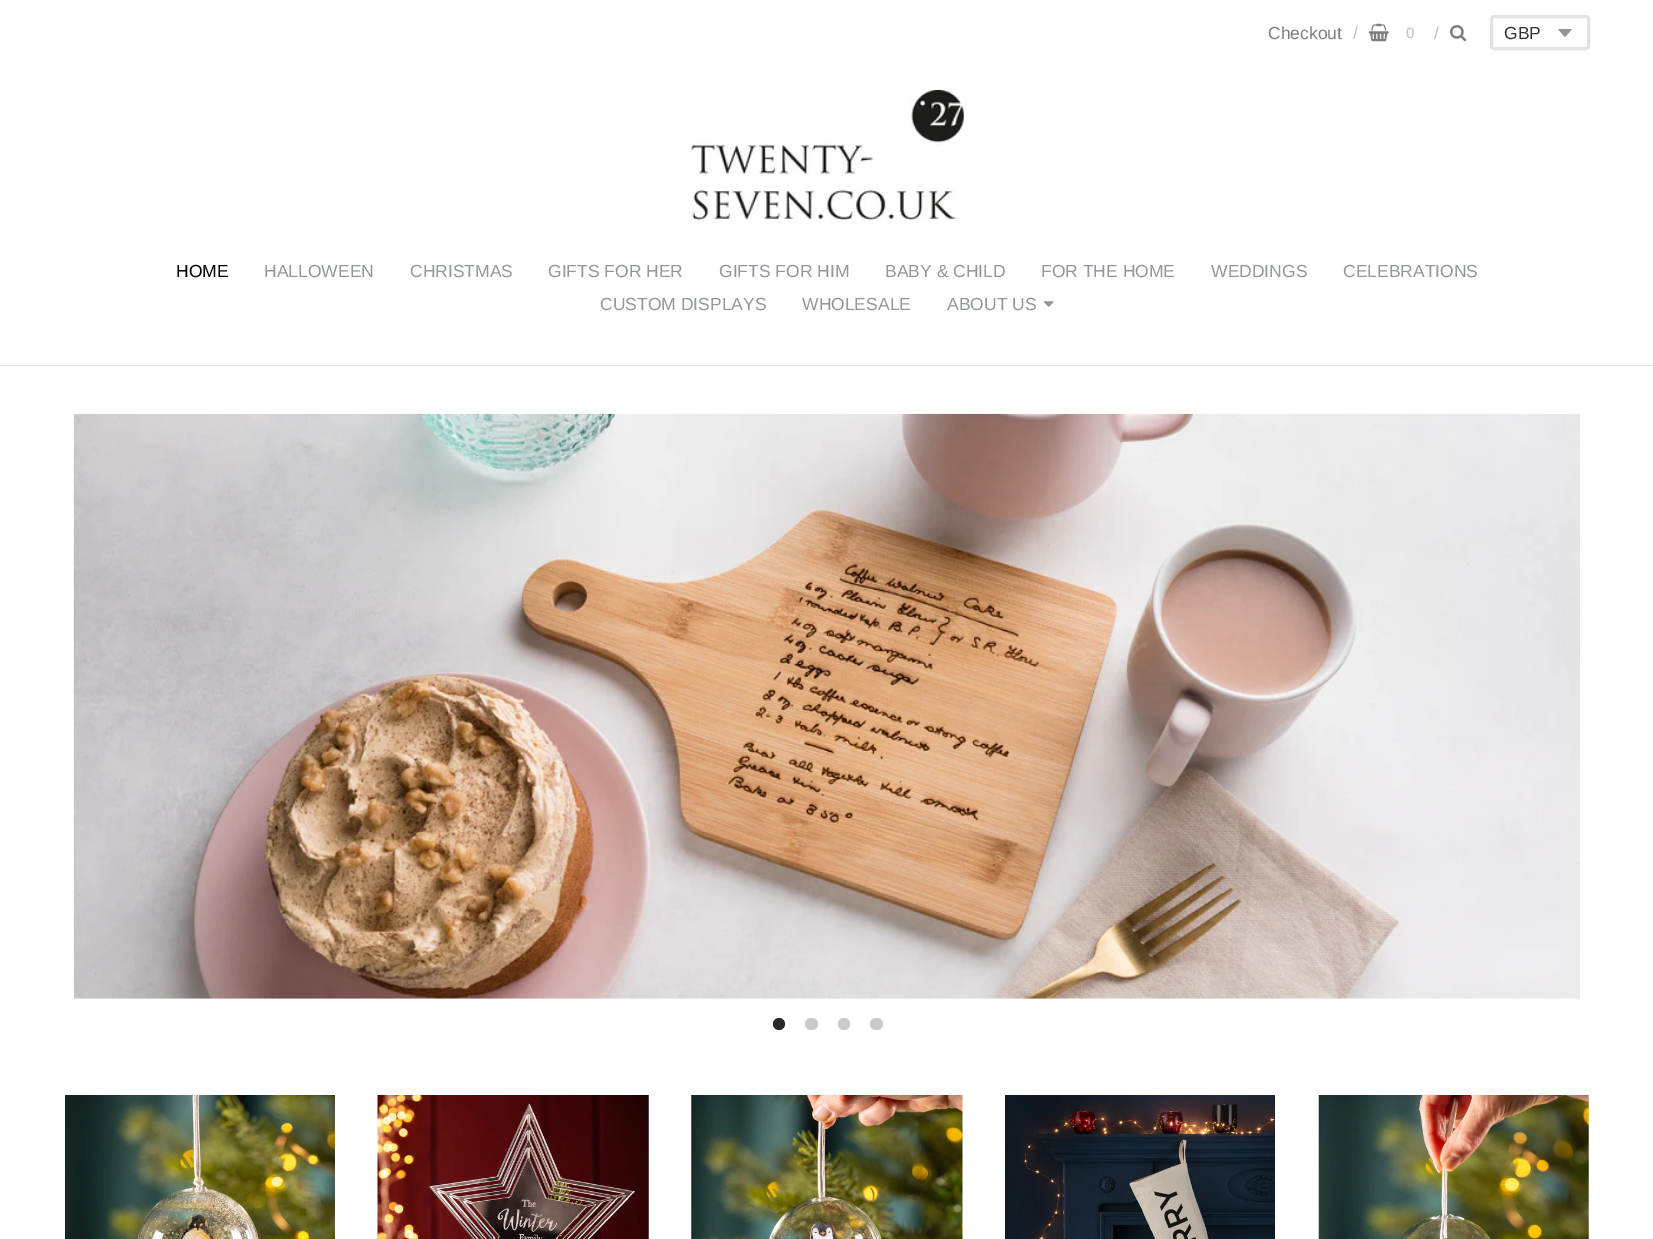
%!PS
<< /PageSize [1653 1239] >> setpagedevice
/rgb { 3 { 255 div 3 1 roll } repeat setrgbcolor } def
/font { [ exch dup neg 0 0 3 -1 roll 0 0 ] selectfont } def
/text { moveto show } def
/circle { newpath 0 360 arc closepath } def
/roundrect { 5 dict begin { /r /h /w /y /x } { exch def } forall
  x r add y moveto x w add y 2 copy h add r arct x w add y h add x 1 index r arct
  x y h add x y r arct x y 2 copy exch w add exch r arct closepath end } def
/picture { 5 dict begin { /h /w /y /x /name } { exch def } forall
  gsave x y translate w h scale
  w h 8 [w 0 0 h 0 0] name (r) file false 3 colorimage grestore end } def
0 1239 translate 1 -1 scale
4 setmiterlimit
255 255 255 rgb
0 0 1653 1239 rectfill
(img_01.rgb) 1368 23 21 19 picture
(img_02.rgb) 1450 25 17 17 picture
(img_03.rgb) 1558 29 14 8 picture
225 227 228 rgb
3 setlinewidth
1491.5 16.5 97 32 2.5 roundrect stroke
228 229 230 rgb
0 365 1653 1 rectfill
(img_04.rgb) 691 90 273 131 picture
(img_05.rgb) 1043 301 11 6 picture
(img_06.rgb) 73 413 1507 586 picture
40 41 43 rgb
779 1024 6 circle fill
201 202 202 rgb
805 1018 13 12 6 roundrect fill
844 1024 6 circle fill
870 1018 13 12 6 roundrect fill
(img_07.rgb) 65 1095 270 144 picture
(img_08.rgb) 377 1095 272 144 picture
(img_09.rgb) 691 1095 272 144 picture
(img_10.rgb) 1005 1095 270 144 picture
(img_11.rgb) 1318 1095 271 144 picture
/LiberationSans-Regular 17.5 font
126 126 126 rgb
(Checkout) 1268 39 text
191 191 191 rgb
(/) 1353 39 text
/LiberationSans-Regular 15 font
(0) 1406 38 text
/LiberationSans-Regular 17.5 font
(/) 1434 39 text
51 51 51 rgb
(GBP) 1504 39 text
0 0 0 rgb
(HOME) 176 277 text
147 151 157 rgb
(HALLOWEEN) 264 277 text
(CHRISTMAS) 410 277 text
(GIFTS FOR HER) 548 277 text
(GIFTS FOR HIM) 719 277 text
(BABY & CHILD) 885 277 text
(FOR THE HOME) 1041 277 text
(WEDDINGS) 1211 277 text
(CELEBRATIONS) 1343 277 text
(CUSTOM DISPLAYS) 600 310 text
(WHOLESALE) 802 310 text
(ABOUT US) 947 310 text
showpage
